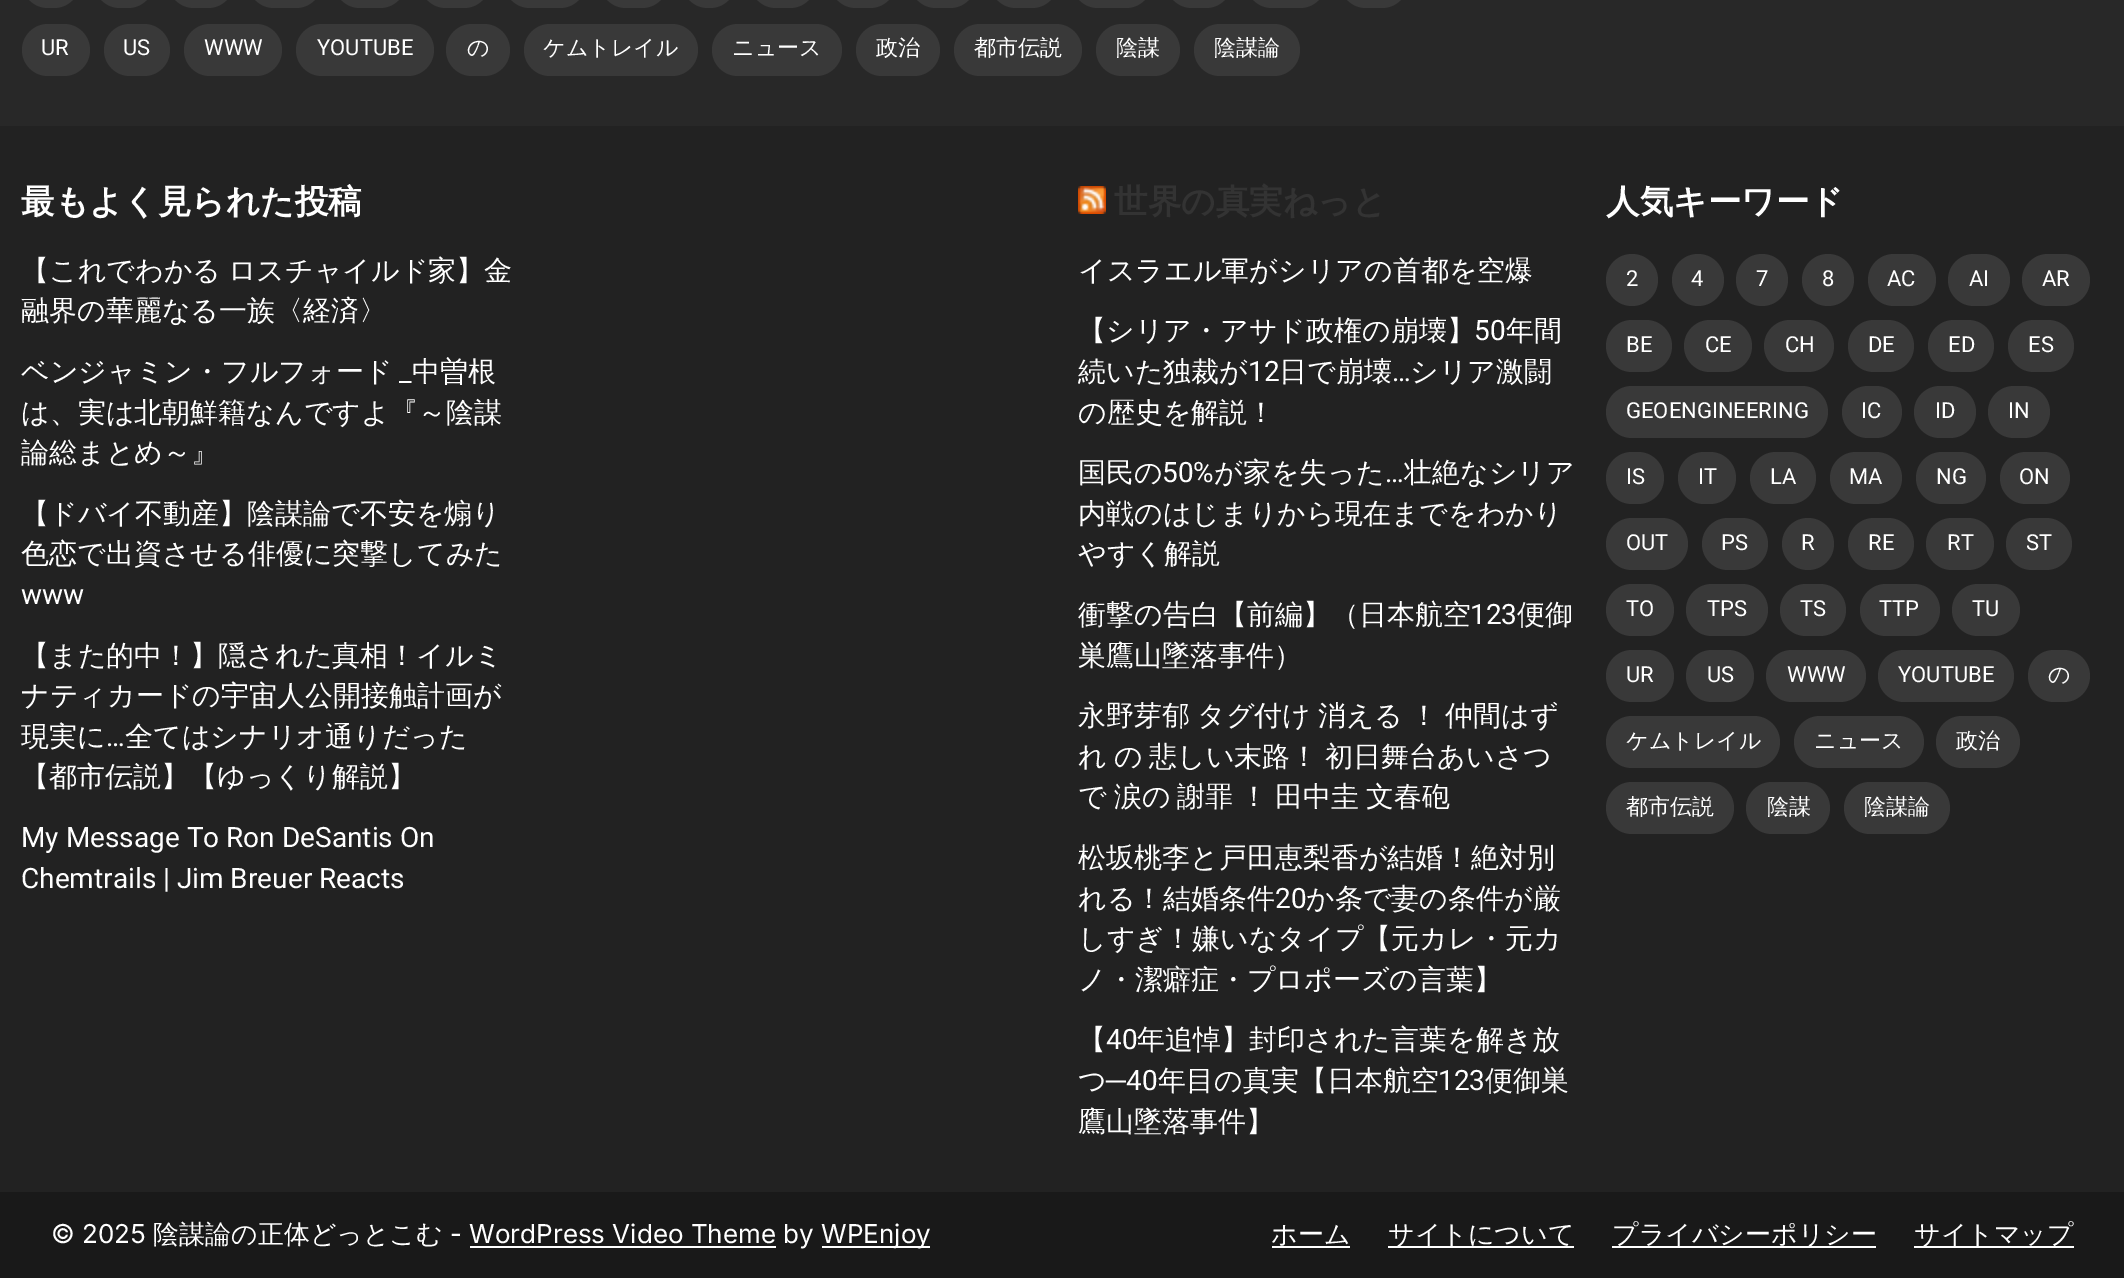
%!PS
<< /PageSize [2124 1278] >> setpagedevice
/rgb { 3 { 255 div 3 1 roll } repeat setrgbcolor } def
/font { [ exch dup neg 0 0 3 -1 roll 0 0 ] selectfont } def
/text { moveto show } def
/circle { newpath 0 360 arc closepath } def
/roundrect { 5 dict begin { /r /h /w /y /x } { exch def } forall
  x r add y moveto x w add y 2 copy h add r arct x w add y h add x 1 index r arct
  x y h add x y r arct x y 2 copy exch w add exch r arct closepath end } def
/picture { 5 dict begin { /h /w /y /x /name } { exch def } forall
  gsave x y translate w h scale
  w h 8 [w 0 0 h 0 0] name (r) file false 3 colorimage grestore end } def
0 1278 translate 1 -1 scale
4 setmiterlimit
40 40 40 rgb
0 0 2124 1278 rectfill
57 57 57 rgb
22 -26 58 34 26 roundrect fill
94 -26 60 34 26 roundrect fill
168 -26 66 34 26 roundrect fill
248 -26 74 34 26 roundrect fill
334 -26 72 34 26 roundrect fill
420 -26 70 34 26 roundrect fill
504 -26 82 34 26 roundrect fill
600 -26 68 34 26 roundrect fill
682 -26 54 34 26 roundrect fill
750 -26 66 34 26 roundrect fill
830 -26 66 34 26 roundrect fill
910 -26 66 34 26 roundrect fill
990 -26 68 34 26 roundrect fill
1072 -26 80 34 26 roundrect fill
1166 -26 66 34 26 roundrect fill
1246 -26 80 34 26 roundrect fill
1340 -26 68 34 26 roundrect fill
22 24 68 52 26 roundrect fill
104 24 66 52 26 roundrect fill
184 24 98 52 26 roundrect fill
296 24 138 52 26 roundrect fill
446 24 64 52 26 roundrect fill
524 24 174 52 26 roundrect fill
712 24 130 52 26 roundrect fill
856 24 84 52 26 roundrect fill
954 24 128 52 26 roundrect fill
1096 24 84 52 26 roundrect fill
1194 24 106 52 26 roundrect fill
34 34 34 rgb
0 126 2124 1066 rectfill
(img_01.rgb) 1078 186 28 28 picture
57 57 57 rgb
1632 280 26 circle fill
1698 280 26 circle fill
1762 280 26 circle fill
1828 280 26 circle fill
1868 254 68 52 26 roundrect fill
1948 254 62 52 26 roundrect fill
2022 254 68 52 26 roundrect fill
1606 320 66 52 26 roundrect fill
1684 320 68 52 26 roundrect fill
1764 320 70 52 26 roundrect fill
1848 320 66 52 26 roundrect fill
1928 320 66 52 26 roundrect fill
2008 320 66 52 26 roundrect fill
1606 386 222 52 26 roundrect fill
1842 386 60 52 26 roundrect fill
1914 386 62 52 26 roundrect fill
1988 386 62 52 26 roundrect fill
1606 452 58 52 26 roundrect fill
1678 452 58 52 26 roundrect fill
1750 452 66 52 26 roundrect fill
1830 452 72 52 26 roundrect fill
1916 452 70 52 26 roundrect fill
2000 452 70 52 26 roundrect fill
1606 518 82 52 26 roundrect fill
1702 518 66 52 26 roundrect fill
1808 544 26 circle fill
1848 518 66 52 26 roundrect fill
1926 518 68 52 26 roundrect fill
2006 518 66 52 26 roundrect fill
1606 584 68 52 26 roundrect fill
1686 584 82 52 26 roundrect fill
1780 584 66 52 26 roundrect fill
1860 584 80 52 26 roundrect fill
1952 584 68 52 26 roundrect fill
1606 650 68 52 26 roundrect fill
1686 650 68 52 26 roundrect fill
1766 650 100 52 26 roundrect fill
1878 650 136 52 26 roundrect fill
2028 650 62 52 26 roundrect fill
1606 716 174 52 26 roundrect fill
1794 716 130 52 26 roundrect fill
1936 716 84 52 26 roundrect fill
1606 782 128 52 26 roundrect fill
1746 782 84 52 26 roundrect fill
1844 782 106 52 26 roundrect fill
25 25 25 rgb
0 1192 2124 86 rectfill
255 255 255 rgb
822 1246 108 2 rectfill
470 1246 306 2 rectfill
1272 1246 78 2 rectfill
1388 1246 186 2 rectfill
1612 1246 264 2 rectfill
1914 1246 160 2 rectfill
/Roboto-Regular 22 font
(UR) 41 55 text
(US) 123 55 text
(WWW) 204 55 text
(YOUTUBE) 317 55 text
/WenQuanYiZenHei-Medium 22 font
(の) 467 55 text
(ケムトレイル) 543 55 text
(ニュース) 732 55 text
(政治) 876 55 text
(都市伝説) 974 55 text
(陰謀) 1116 55 text
(陰謀論) 1214 55 text
/WenQuanYiZenHei-Bold 33.6 font
(最もよく見られた投稿) 21 213 text
/WenQuanYiZenHei-Medium 28 font
21 280 moveto -1.5 0 32 (【これでわかる ロスチャイルド家】金) widthshow
(融界の華麗なる一族〈経済〉) 21 320 text
(ベンジャミン・フルフォード) 21 381 text
/Roboto-Regular 28 font
(_) 399 381 text
/WenQuanYiZenHei-Medium 28 font
(中曽根) 412 381 text
(は、実は北朝鮮籍なんですよ『～陰謀) 21 422 text
(論総まとめ～』) 21 462 text
(【ドバイ不動産】陰謀論で不安を煽り) 21 523 text
(色恋で出資させる俳優に突撃してみた) 21 563 text
/Roboto-Regular 28 font
(www) 21 604 text
/WenQuanYiZenHei-Medium 28 font
(【また的中！】隠された真相！イルミ) 21 665 text
(ナティカードの宇宙人公開接触計画が) 21 705 text
(現実に) 21 746 text
/Roboto-Regular 28 font
(…) 106 746 text
/WenQuanYiZenHei-Medium 28 font
(全てはシナリオ通りだった) 125 746 text
(【都市伝説】【ゆっくり解説】) 21 786 text
/Roboto-Regular 28 font
(My Message To Ron DeSantis On) 21 847 text
(Chemtrails | Jim Breuer Reacts) 21 888 text
/WenQuanYiZenHei-Bold 33.6 font
51 51 51 rgb
(世界の真実ねっと) 1114 213 text
/WenQuanYiZenHei-Medium 28 font
255 255 255 rgb
(イスラエル軍がシリアの首都を空爆) 1078 280 text
(【シリア・アサド政権の崩壊】) 1078 340 text
/Roboto-Regular 28 font
(50) 1474 340 text
/WenQuanYiZenHei-Medium 28 font
(年間) 1506 340 text
(続いた独裁が) 1078 381 text
/Roboto-Regular 28 font
(12) 1248 381 text
/WenQuanYiZenHei-Medium 28 font
(日で崩壊) 1279 381 text
/Roboto-Regular 28 font
(…) 1392 381 text
/WenQuanYiZenHei-Medium 28 font
(シリア激闘) 1410 381 text
(の歴史を解説！) 1078 422 text
(国民の) 1078 482 text
/Roboto-Regular 28 font
(50%) 1162 482 text
/WenQuanYiZenHei-Medium 28 font
(が家を失った) 1214 482 text
/Roboto-Regular 28 font
(…) 1385 482 text
/WenQuanYiZenHei-Medium 28 font
(壮絶なシリア) 1404 482 text
(内戦のはじまりから現在までをわかり) 1078 523 text
(やすく解説) 1078 563 text
(衝撃の告白【前編】（日本航空) 1078 624 text
/Roboto-Regular 28 font
(123) 1470 624 text
/WenQuanYiZenHei-Medium 28 font
(便御) 1517 624 text
(巣鷹山墜落事件）) 1078 665 text
1078 725 moveto -1.5 0 32 (永野芽郁 タグ付け 消える ！ 仲間はず) widthshow
1078 766 moveto -1.5 0 32 (れ の 悲しい末路！ 初日舞台あいさつ) widthshow
1078 806 moveto -1.5 0 32 (で 涙の 謝罪 ！ 田中圭 文春砲) widthshow
(松坂桃李と戸田恵梨香が結婚！絶対別) 1078 867 text
(れる！結婚条件) 1078 908 text
/Roboto-Regular 28 font
(20) 1275 908 text
/WenQuanYiZenHei-Medium 28 font
(か条で妻の条件が厳) 1306 908 text
(しすぎ！嫌いなタイプ【元カレ・元カ) 1078 948 text
(ノ・潔癖症・プロポーズの言葉】) 1078 989 text
(【) 1078 1049 text
/Roboto-Regular 28 font
(40) 1106 1049 text
/WenQuanYiZenHei-Medium 28 font
(年追悼】封印された言葉を解き放) 1137 1049 text
(つ) 1078 1090 text
/LiberationSans-Regular 28 font
(─) 1106 1090 text
/Roboto-Regular 28 font
(40) 1126 1090 text
/WenQuanYiZenHei-Medium 28 font
(年目の真実【日本航空) 1158 1090 text
/Roboto-Regular 28 font
(123) 1438 1090 text
/WenQuanYiZenHei-Medium 28 font
(便御巣) 1485 1090 text
(鷹山墜落事件】) 1078 1131 text
/WenQuanYiZenHei-Bold 33.6 font
(人気キーワード) 1606 213 text
/Roboto-Regular 22 font
(2) 1626 286 text
(4) 1691 286 text
(7) 1756 286 text
(8) 1822 286 text
(AC) 1887 286 text
(AI) 1969 286 text
(AR) 2042 286 text
(BE) 1626 352 text
(CE) 1705 352 text
(CH) 1785 352 text
(DE) 1868 352 text
(ED) 1948 352 text
(ES) 2028 352 text
(GEOENGINEERING) 1626 418 text
(IC) 1861 418 text
(ID) 1935 418 text
(IN) 2008 418 text
(IS) 1626 484 text
(IT) 1698 484 text
(LA) 1770 484 text
(MA) 1849 484 text
(NG) 1936 484 text
(ON) 2019 484 text
(OUT) 1626 550 text
(PS) 1721 550 text
(R) 1801 550 text
(RE) 1868 550 text
(RT) 1947 550 text
(ST) 2026 550 text
(TO) 1626 616 text
(TPS) 1707 616 text
(TS) 1800 616 text
(TTP) 1879 616 text
(TU) 1972 616 text
(UR) 1626 682 text
(US) 1707 682 text
(WWW) 1787 682 text
(YOUTUBE) 1898 682 text
/WenQuanYiZenHei-Medium 22 font
(の) 2048 682 text
(ケムトレイル) 1626 748 text
(ニュース) 1814 748 text
(政治) 1956 748 text
(都市伝説) 1626 814 text
(陰謀) 1767 814 text
(陰謀論) 1864 814 text
/Inter-Regular 26 font
(© 2025) 51 1243 text
/WenQuanYiZenHei-Medium 26 font
(陰謀論の正体どっとこむ) 153 1243 text
/Inter-Regular 26 font
(- WordPress Video Theme by) 450 1243 text
(WPEnjoy) 821 1243 text
/WenQuanYiZenHei-Medium 26 font
(ホーム) 1271 1243 text
(サイトについて) 1388 1243 text
(プライバシーポリシー) 1612 1243 text
(サイトマップ) 1914 1243 text
showpage
